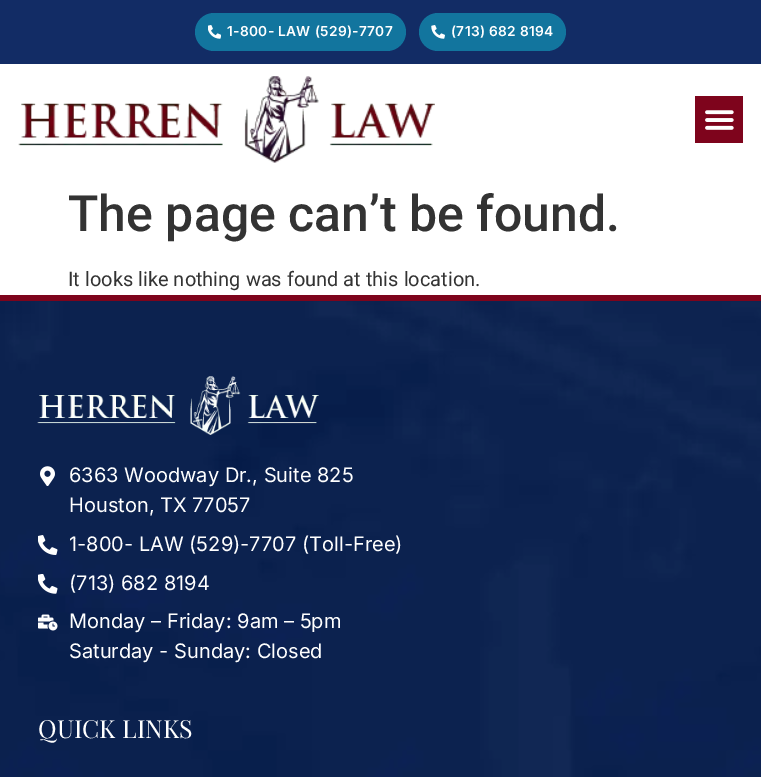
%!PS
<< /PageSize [761 777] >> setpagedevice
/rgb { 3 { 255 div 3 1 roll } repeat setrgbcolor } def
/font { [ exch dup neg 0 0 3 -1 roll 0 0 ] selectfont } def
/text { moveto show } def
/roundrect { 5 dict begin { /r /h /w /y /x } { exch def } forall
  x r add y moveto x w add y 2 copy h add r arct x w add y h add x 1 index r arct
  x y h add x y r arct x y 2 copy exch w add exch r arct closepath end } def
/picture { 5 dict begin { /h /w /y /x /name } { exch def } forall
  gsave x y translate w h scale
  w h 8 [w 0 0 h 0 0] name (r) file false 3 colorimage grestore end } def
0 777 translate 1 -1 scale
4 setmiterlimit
255 255 255 rgb
0 0 761 777 rectfill
18 44 101 rgb
0 0 761 64 rectfill
18 117 158 rgb
195 13 211 38 19 roundrect fill
(img_01.rgb) 208 25 13 14 picture
419 13 147 38 19 roundrect fill
(img_02.rgb) 431 25 14 14 picture
(img_03.rgb) 18 76 417 87 picture
126 4 28 rgb
695 96 48 47 rectfill
(img_04.rgb) 705 110 29 20 picture
(img_05.rgb) 0 301 761 476 picture
0 295 761 6 rectfill
(img_06.rgb) 37 376 282 59 picture
(img_07.rgb) 40 466 15 20 picture
(img_08.rgb) 38 535 20 20 picture
(img_09.rgb) 38 574 20 20 picture
(img_10.rgb) 38 614 20 17 picture
/Inter-SemiBold 13.75 font
255 255 255 rgb
227 36 moveto 0.3 0 (1-800- LAW \(529\)-7707) ashow
451 36 moveto 0.3 0 (\(713\) 682 8194) ashow
/Roboto-Medium 50 font
51 51 51 rgb
(The page can’t be found.) 68 231 text
/Roboto-Regular 20 font
(It looks like nothing was found at this location.) 68 286 text
/Inter-Regular 20 font
255 255 255 rgb
(6363 Woodway Dr., Suite 825) 69 482 text
(Houston, TX 77057) 69 512 text
(1-800- LAW \(529\)-7707 \(Toll-Free\)) 69 551 text
(\(713\) 682 8194) 69 590 text
(Monday – Friday: 9am – 5pm) 69 628 text
(Saturday - Sunday: Closed) 69 658 text
/PlayfairDisplay-Regular 25 font
(QUICK LINKS) 38 738 text
showpage
